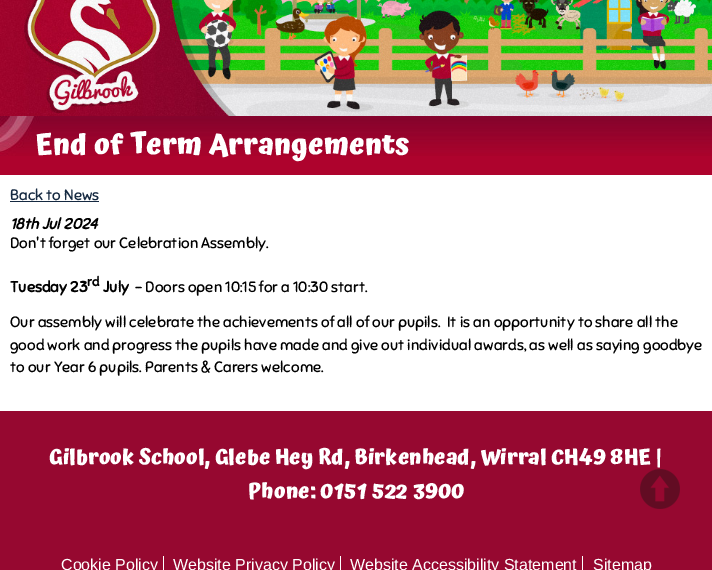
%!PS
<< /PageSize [712 570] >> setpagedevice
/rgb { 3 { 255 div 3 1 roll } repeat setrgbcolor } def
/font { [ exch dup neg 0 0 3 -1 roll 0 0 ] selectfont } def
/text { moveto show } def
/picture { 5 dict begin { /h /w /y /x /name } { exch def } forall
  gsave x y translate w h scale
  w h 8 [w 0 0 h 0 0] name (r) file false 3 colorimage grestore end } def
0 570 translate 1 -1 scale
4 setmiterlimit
255 255 255 rgb
0 0 712 570 rectfill
(img_01.rgb) 0 0 712 116 picture
174 3 45 rgb
0 156 712 19 rectfill
(img_02.rgb) 0 116 712 40 picture
21 41 65 rgb
10 201 89 1 rectfill
150 8 48 rgb
0 411 712 159 rectfill
255 255 255 rgb
163 556 1 14 rectfill
340 556 1 14 rectfill
582 556 1 14 rectfill
/Atma-Bold 28.9 font
(End of Term Arrangements) 35 154 text
/Sniglet-Regular 15.2 font
21 41 65 rgb
(Back to News) 10 200 text
/Sniglet-BoldItalic 15.2 font
0 0 0 rgb
(18th Jul 2024) 10 229 text
/Sniglet-Regular 15.2 font
(Don't forget our Celebration Assembly.) 10 248 text
/Sniglet-Bold 15.2 font
(Tuesday 23) 10 292 text
/Sniglet-Bold 13 font
(rd) 87 286 text
/Sniglet-Bold 15.2 font
(July) 103 292 text
/Sniglet-Regular 15.2 font
(- Doors open 10:15 for a 10:30 start.) 135 292 text
(Our assembly will celebrate the achievements of all of our pupils.  It is an opportunity to share all the) 10 327 text
(good work and progress the pupils have made and give out individual awards, as well as saying goodbye) 10 350 text
(to our Year 6 pupils. Parents & Carers welcome.) 10 372 text
/Atma-Bold 21.1 font
255 255 255 rgb
(Gilbrook School, Glebe Hey Rd, Birkenhead, Wirral CH49 8HE |) 49 464 text
(Phone: 0151 522 3900) 248 498 text
(img_03.rgb) 640 469 40 40 picture
/LiberationSans-Regular 16 font
(Cookie Policy) 61 570 text
(Website Privacy Policy) 173 570 text
(Website Accessibility Statement) 350 570 text
(Sitemap) 593 570 text
showpage
